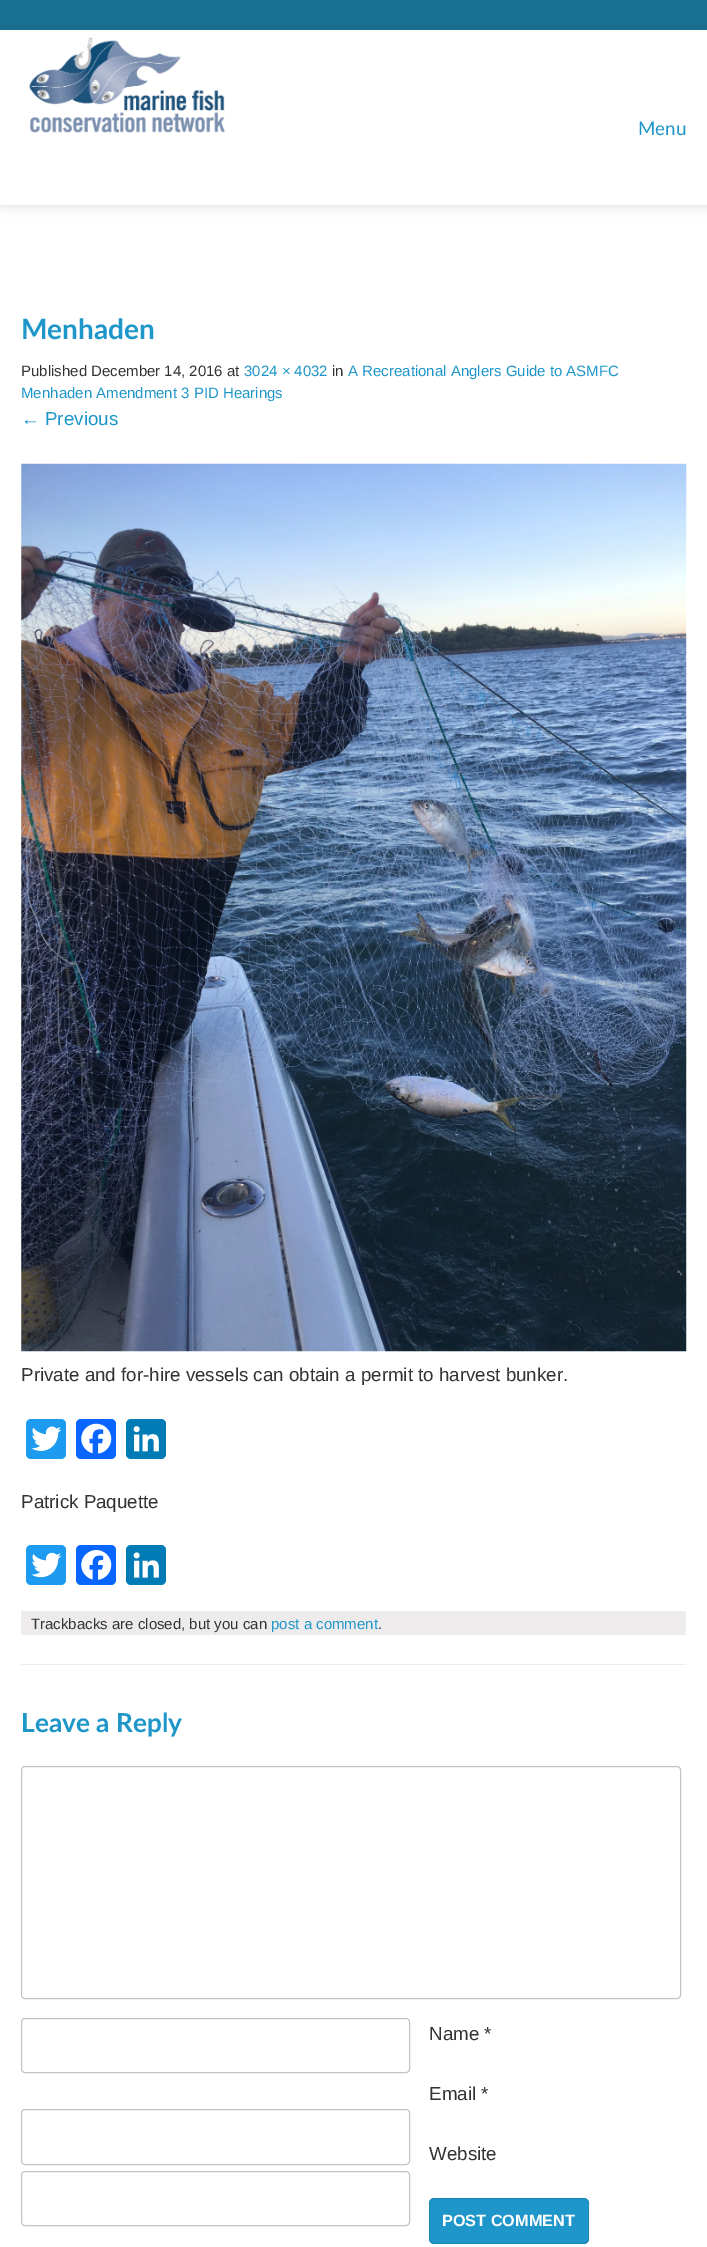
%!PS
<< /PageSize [707 2247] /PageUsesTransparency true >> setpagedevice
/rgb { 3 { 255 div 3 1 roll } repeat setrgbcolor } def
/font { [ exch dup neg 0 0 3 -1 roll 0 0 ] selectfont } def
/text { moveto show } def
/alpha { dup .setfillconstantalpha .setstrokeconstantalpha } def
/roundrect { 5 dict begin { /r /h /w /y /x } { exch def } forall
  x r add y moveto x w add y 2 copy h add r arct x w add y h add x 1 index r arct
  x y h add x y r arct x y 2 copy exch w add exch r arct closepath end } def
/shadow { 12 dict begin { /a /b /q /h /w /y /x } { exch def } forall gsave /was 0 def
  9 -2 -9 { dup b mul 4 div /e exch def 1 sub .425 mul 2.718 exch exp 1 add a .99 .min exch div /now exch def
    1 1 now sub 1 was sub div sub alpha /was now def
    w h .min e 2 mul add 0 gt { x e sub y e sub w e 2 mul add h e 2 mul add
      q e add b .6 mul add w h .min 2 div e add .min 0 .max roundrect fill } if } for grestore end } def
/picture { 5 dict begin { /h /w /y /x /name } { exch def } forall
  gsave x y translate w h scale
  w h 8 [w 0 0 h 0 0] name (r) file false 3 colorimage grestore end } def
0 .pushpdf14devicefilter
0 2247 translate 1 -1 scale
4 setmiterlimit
255 255 255 rgb
0 0 707 2247 rectfill
gsave
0 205 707 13 rectclip
221 221 221 rgb
1 1 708 205 0 6 1 shadow
grestore
24 111 143 rgb
0 0 707 30 rectfill
(img_01.rgb) 29 37 196 96 picture
(img_02.rgb) 21 463 666 889 picture
29 155 240 rgb
26 1419 40 40 5 roundrect fill
(img_03.rgb) 31 1426 31 25 picture
8 102 255 rgb
76 1419 40 40 5 roundrect fill
(img_04.rgb) 81 1423 31 31 picture
0 123 181 rgb
126 1419 40 40 5 roundrect fill
(img_05.rgb) 133 1426 26 26 picture
29 155 240 rgb
26 1545 40 40 5 roundrect fill
(img_06.rgb) 31 1552 31 26 picture
8 102 255 rgb
76 1545 40 40 5 roundrect fill
(img_07.rgb) 81 1550 31 30 picture
0 123 181 rgb
126 1545 40 40 5 roundrect fill
(img_08.rgb) 133 1552 26 26 picture
237 235 235 rgb
21 1611 665 24 rectfill
21 1664 665 1 rectfill
201 194 196 rgb
21.5 1766.5 659 232 3.5 roundrect stroke
21.5 2018.5 388 54 3.5 roundrect stroke
21.5 2109.5 388 55 3.5 roundrect stroke
21.5 2171.5 388 54 3.5 roundrect stroke
30 150 201 rgb
429 2198 160 46 5 roundrect fill
0.1 alpha
0 0 0 rgb
429.5 2198.5 159 45 4.5 roundrect stroke
/Lato-Regular 18.75 font
1 alpha
30 150 201 rgb
(Menu) 638 135 text
/Lato-Bold 28 font
(Menhaden) 21 339 text
/LiberationSans-Regular 15 font
51 51 51 rgb
(Published December 14, 2016 at) 21 376 text
30 150 201 rgb
(3024 × 4032) 244 376 text
51 51 51 rgb
(in) 332 376 text
30 150 201 rgb
(A Recreational Anglers Guide to ASMFC) 348 376 text
(Menhaden Amendment 3 PID Hearings) 21 398 text
/LiberationSans-Regular 18.75 font
(← Previous) 21 425 text
51 51 51 rgb
(Private and for-hire vessels can obtain a permit to harvest bunker.) 21 1381 text
(Patrick Paquette) 21 1508 text
/LiberationSans-Regular 15 font
(Trackbacks are closed, but you can) 31 1629 text
30 150 201 rgb
(post a comment) 271 1629 text
51 51 51 rgb
(.) 378 1629 text
/Lato-Bold 26.25 font
30 150 201 rgb
(Leave a Reply) 21 1732 text
/LiberationSans-Regular 18.75 font
51 51 51 rgb
(Name *) 429 2040 text
(Email *) 429 2100 text
(Website) 429 2160 text
/LiberationSans-Bold 16.25 font
255 255 255 rgb
(POST COMMENT) 442 2226 text
.poppdf14devicefilter showpage
